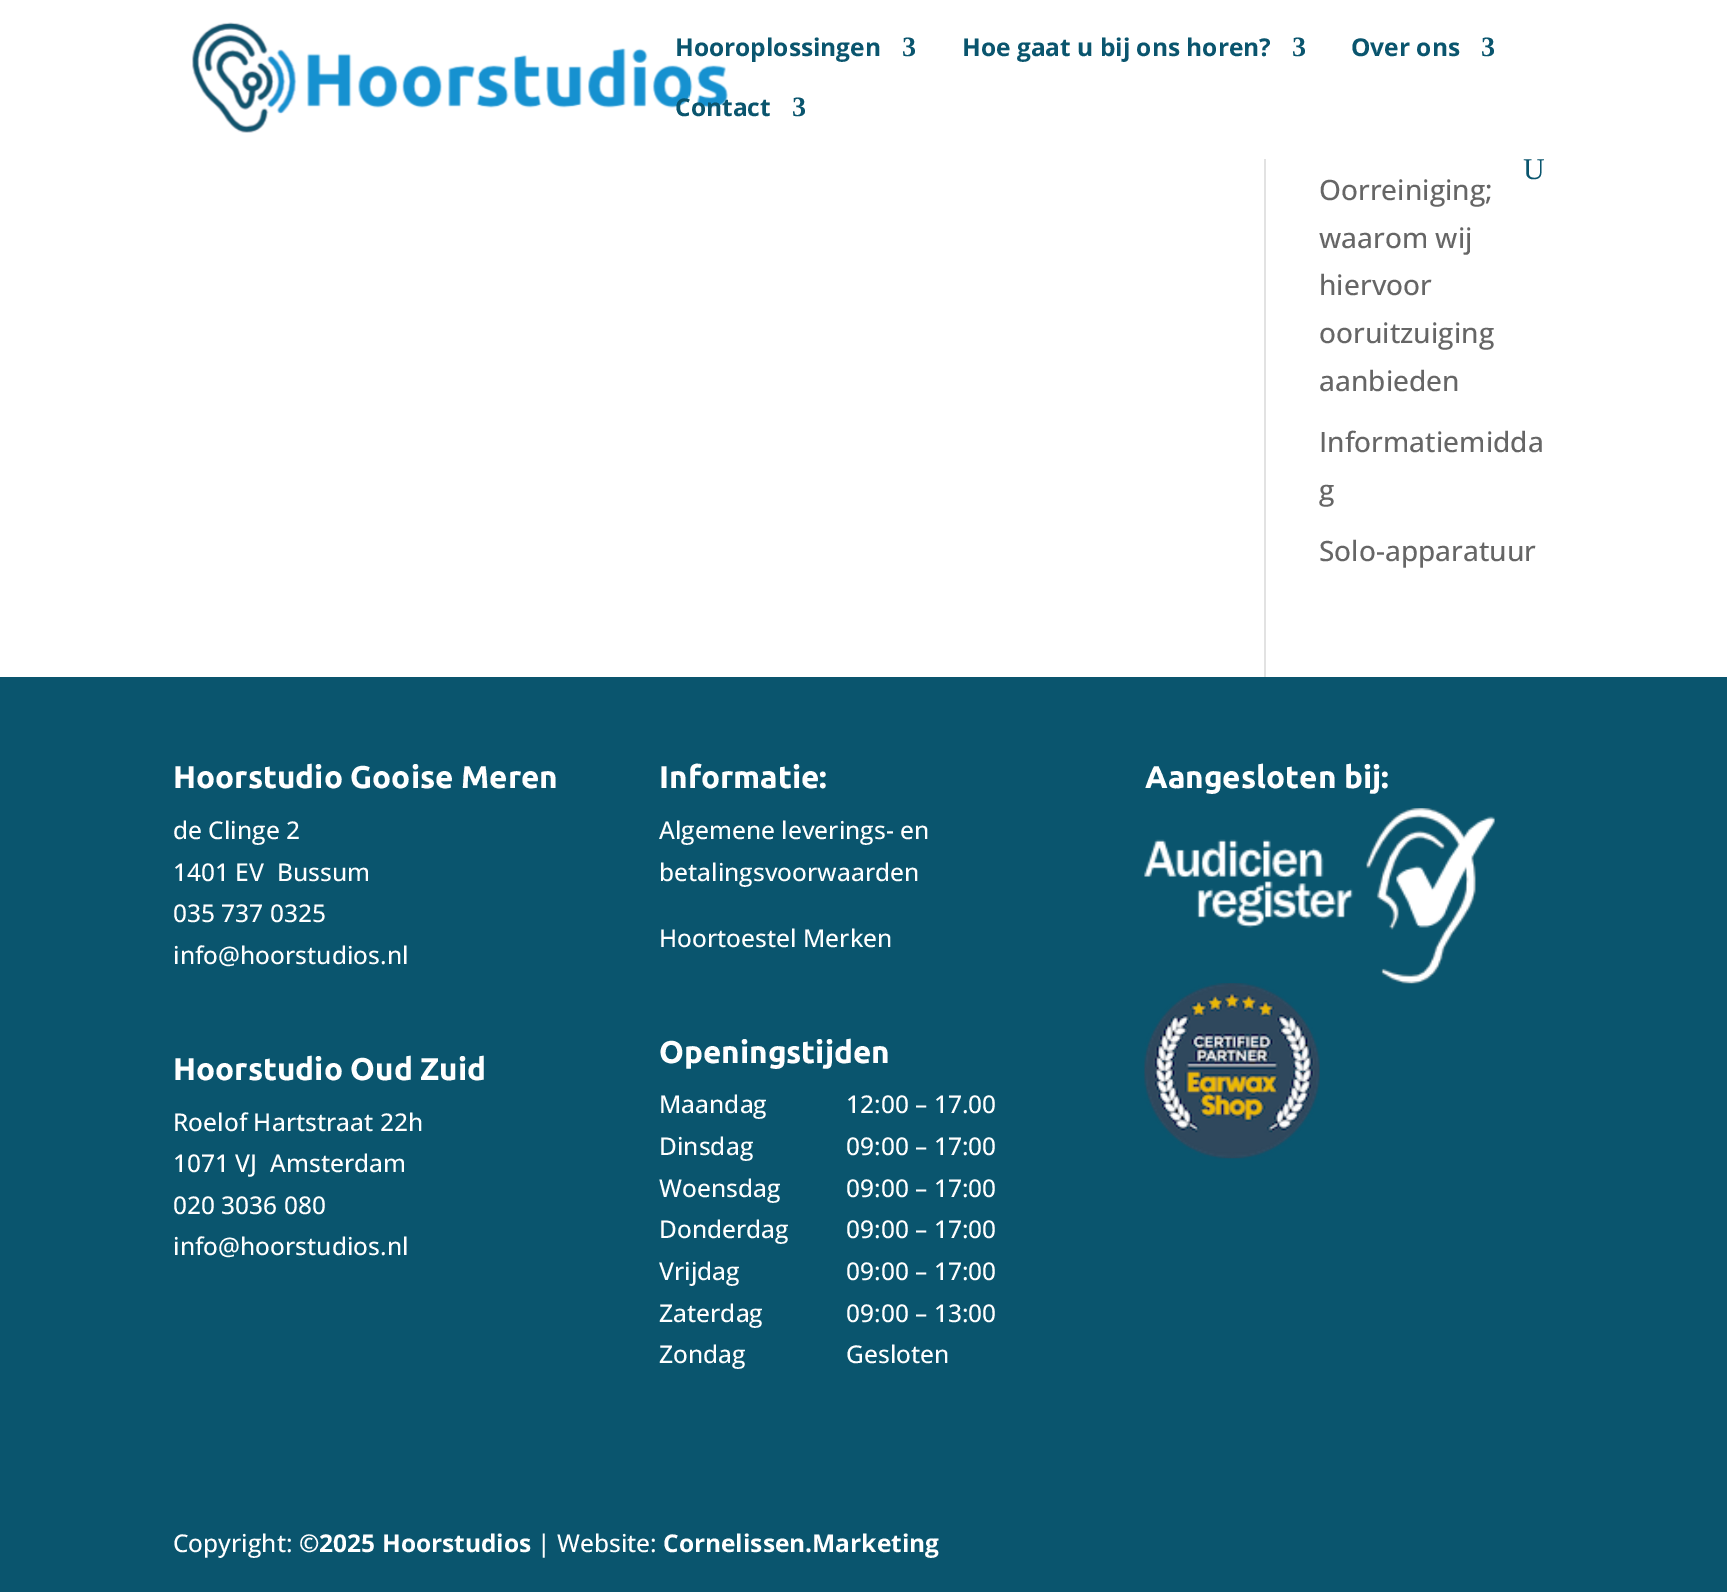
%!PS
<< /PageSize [1727 1592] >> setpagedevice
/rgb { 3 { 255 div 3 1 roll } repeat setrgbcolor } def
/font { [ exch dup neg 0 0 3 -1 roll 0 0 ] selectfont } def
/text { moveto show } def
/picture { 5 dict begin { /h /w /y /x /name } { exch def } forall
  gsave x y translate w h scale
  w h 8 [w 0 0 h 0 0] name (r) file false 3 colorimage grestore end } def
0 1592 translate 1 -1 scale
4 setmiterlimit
255 255 255 rgb
0 0 1727 1592 rectfill
(img_01.rgb) 192 22 536 111 picture
226 226 226 rgb
1264 159 2 518 rectfill
10 85 110 rgb
0 677 1727 915 rectfill
(img_02.rgb) 1144 808 351 176 picture
(img_03.rgb) 1144 983 176 176 picture
/OpenSans-Bold 24.5 font
(Hooroplossingen) 675 56 text
/LiberationSerif-Bold 28 font
(3) 902 56 text
/OpenSans-Bold 24.5 font
(Hoe gaat u bij ons horen?) 962 56 text
/LiberationSerif-Bold 28 font
(3) 1292 56 text
/OpenSans-Bold 24.5 font
(Over ons) 1351 56 text
/LiberationSerif-Bold 28 font
(3) 1481 56 text
/OpenSans-Bold 24.5 font
(Contact) 675 116 text
/LiberationSerif-Bold 28 font
(3) 792 116 text
/LiberationSerif-Regular 30 font
(U) 1523 179 text
/OpenSans-Medium 28 font
102 102 102 rgb
(Oorreiniging;) 1319 200 text
(waarom wij) 1319 248 text
(hiervoor) 1319 295 text
(ooruitzuiging) 1319 343 text
(aanbieden) 1319 391 text
(Informatiemidda) 1319 452 text
(g) 1319 500 text
(Solo-apparatuur) 1319 561 text
/Ubuntu-Bold 31.5 font
255 255 255 rgb
(Hoorstudio Gooise Meren) 173 788 text
/OpenSans-Medium 24.5 font
(de Clinge 2) 173 839 text
(1401 EV  Bussum) 173 881 text
(035 737 0325) 173 922 text
(info@hoorstudios.nl) 173 964 text
/Ubuntu-Bold 31.5 font
(Hoorstudio Oud Zuid) 173 1080 text
/OpenSans-Medium 24.5 font
(Roelof Hartstraat 22h) 173 1131 text
(1071 VJ  Amsterdam) 173 1172 text
(020 3036 080) 173 1214 text
(info@hoorstudios.nl) 173 1255 text
/Ubuntu-Bold 31.5 font
(Informatie:) 659 788 text
/OpenSans-Medium 24.5 font
(Algemene leverings- en) 659 839 text
(betalingsvoorwaarden) 659 881 text
(Hoortoestel Merken) 659 947 text
/Ubuntu-Bold 31.5 font
(Openingstijden) 659 1063 text
/OpenSans-Medium 24.5 font
(Maandag) 659 1113 text
(12:00 – 17.00) 846 1113 text
(Dinsdag) 659 1155 text
(09:00 – 17:00) 846 1155 text
(Woensdag) 659 1197 text
(09:00 – 17:00) 846 1197 text
(Donderdag) 659 1238 text
(09:00 – 17:00) 846 1238 text
(Vrijdag) 659 1280 text
(09:00 – 17:00) 846 1280 text
(Zaterdag) 659 1322 text
(09:00 – 13:00) 846 1322 text
(Zondag) 659 1363 text
(Gesloten) 846 1363 text
/Ubuntu-Bold 31.5 font
(Aangesloten bij:) 1145 788 text
/OpenSans-Medium 24.5 font
(Copyright:) 173 1552 text
/OpenSans-Bold 24.5 font
(©2025 Hoorstudios) 299 1552 text
/OpenSans-Medium 24.5 font
(| Website:) 537 1552 text
/OpenSans-Bold 24.5 font
(Cornelissen.Marketing) 663 1552 text
showpage
